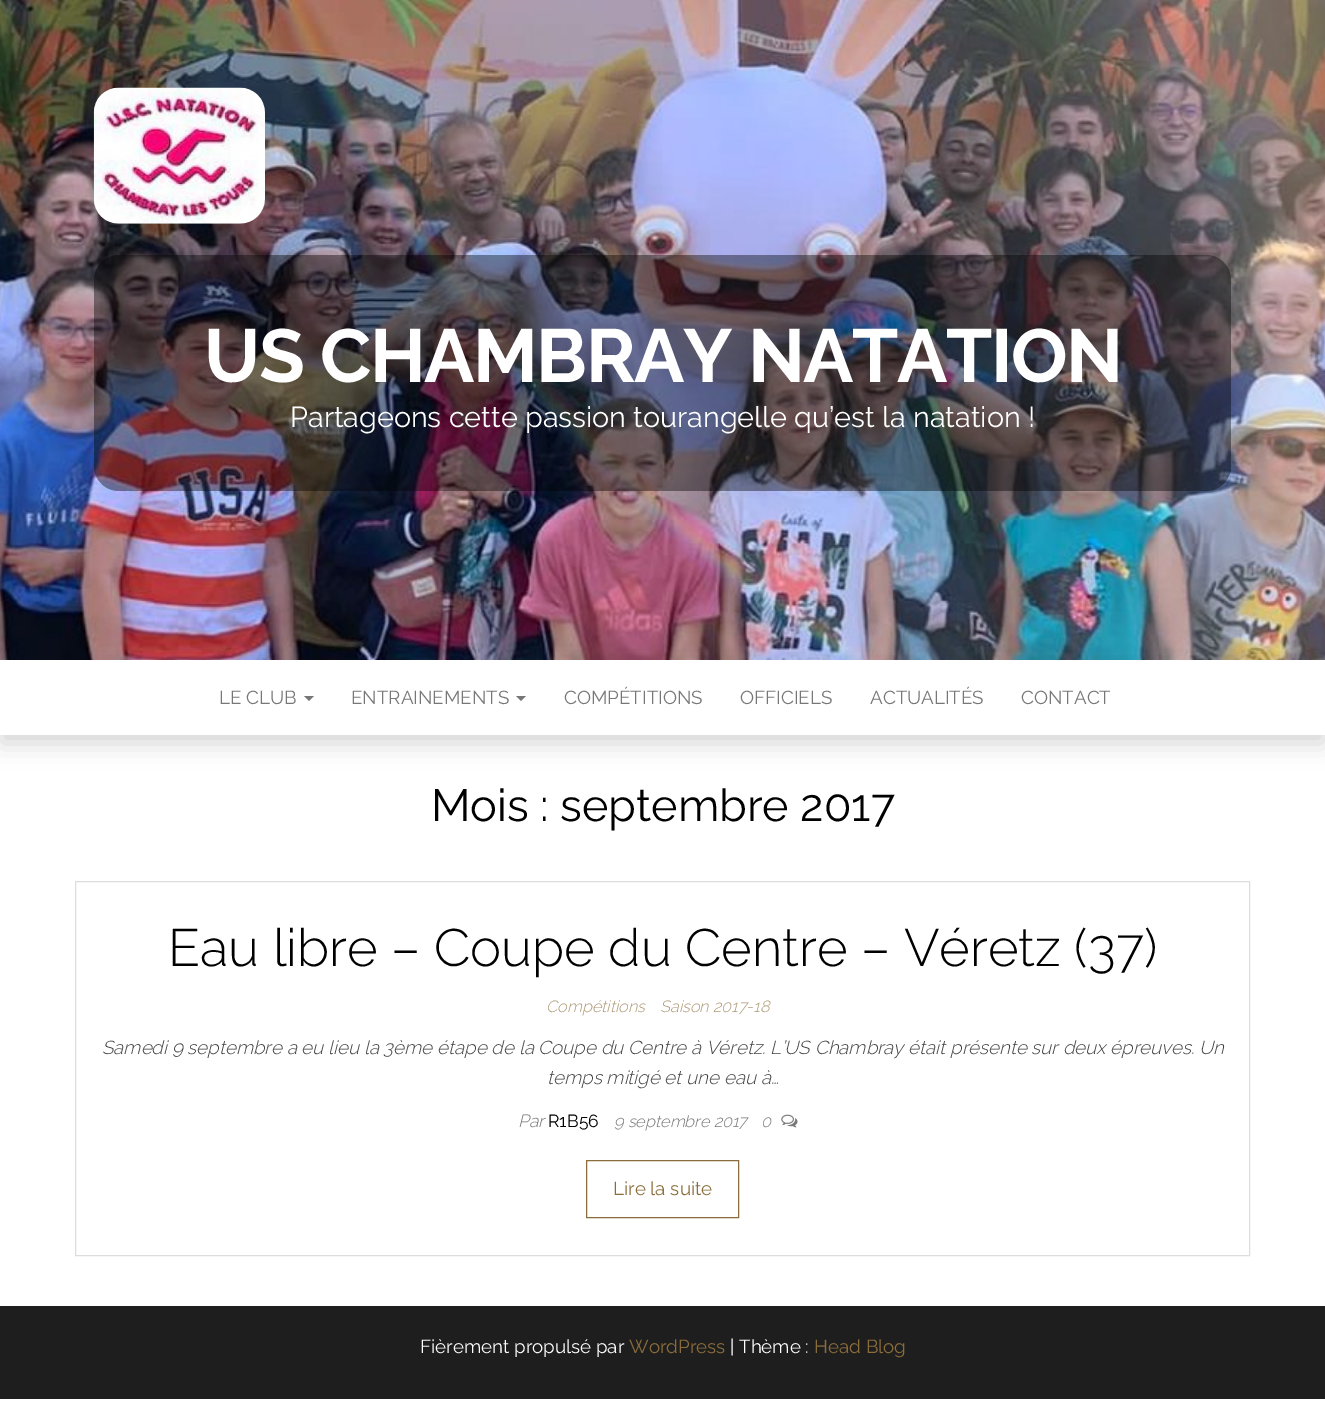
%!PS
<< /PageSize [1325 1425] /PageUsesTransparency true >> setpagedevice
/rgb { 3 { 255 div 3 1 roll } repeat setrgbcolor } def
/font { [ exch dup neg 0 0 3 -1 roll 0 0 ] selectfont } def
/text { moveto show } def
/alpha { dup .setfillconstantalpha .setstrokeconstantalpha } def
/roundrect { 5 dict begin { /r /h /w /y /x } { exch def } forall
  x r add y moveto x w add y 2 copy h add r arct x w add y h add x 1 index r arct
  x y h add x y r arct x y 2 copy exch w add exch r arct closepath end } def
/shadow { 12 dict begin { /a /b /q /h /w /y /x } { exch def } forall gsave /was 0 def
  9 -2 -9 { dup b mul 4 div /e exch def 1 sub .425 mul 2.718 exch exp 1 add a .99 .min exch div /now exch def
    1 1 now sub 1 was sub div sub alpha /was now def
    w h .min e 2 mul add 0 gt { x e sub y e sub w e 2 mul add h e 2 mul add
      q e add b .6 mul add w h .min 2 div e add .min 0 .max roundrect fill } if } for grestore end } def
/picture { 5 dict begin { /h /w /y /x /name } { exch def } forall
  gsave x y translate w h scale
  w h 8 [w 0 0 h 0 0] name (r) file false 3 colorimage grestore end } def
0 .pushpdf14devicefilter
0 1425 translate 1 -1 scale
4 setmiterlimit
255 255 255 rgb
0 0 1325 1425 rectfill
(img_01.rgb) 0 0 1325 660 picture
(img_02.rgb) 93 87 172 137 picture
0.4 alpha
0 0 0 rgb
94 255 1137 236 25 roundrect fill
gsave
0 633 moveto 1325 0 rlineto 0 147 rlineto -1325 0 rlineto closepath 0 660 moveto 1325 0 rlineto 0 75 rlineto -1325 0 rlineto closepath eoclip newpath
1 alpha
1 670 1323 73 0 12 0.17 shadow
grestore
1 alpha
119 119 119 rgb
304 696 moveto 10 0 rlineto -5 5 rlineto closepath fill
516 696 moveto 10 0 rlineto -5 5 rlineto closepath fill
221 221 221 rgb
75.5 881.5 1174 374 rectstroke
(img_03.rgb) 781 1114 17 14 picture
138 109 59 rgb
586.5 1160.5 152 57 rectstroke
30 30 30 rgb
0 1306 1325 93 rectfill
/Raleway-Bold 75 font
255 255 255 rgb
204 382 moveto -1.5 0 (US CHAMBRAY NATATION) ashow
/Raleway-Regular 28.75 font
(Partageons cette passion tourangelle qu’est la natation !) 290 427 text
/Raleway-Regular 18.75 font
119 119 119 rgb
(LE CLUB) 219 704 text
(ENTRAINEMENTS) 351 704 text
(COMPÉTITIONS) 564 704 text
(OFFICIELS) 740 704 text
(ACTUALITÉS) 870 704 text
(CONTACT) 1021 704 text
/Raleway-Regular 45 font
0 0 0 rgb
(Mois : septembre 2017) 431 821 text
/Raleway-Light 52.5 font
(Eau libre – Coupe du Centre – Véretz \(37\)) 168 966 text
/Raleway-LightItalic 16.25 font
173 152 117 rgb
(Compétitions) 546 1012 text
(Saison 2017-18) 660 1012 text
/Raleway-LightItalic 18.75 font
64 64 64 rgb
(Samedi 9 septembre a eu lieu la 3ème étape de la Coupe du Centre à Véretz. L’US Chambray était présente sur deux épreuves. Un) 102 1054 text
(temps mitigé et une eau à…) 547 1084 text
/Raleway-LightItalic 17.5 font
119 119 119 rgb
(Par) 518 1127 text
/Raleway-Regular 17.5 font
0 0 0 rgb
(R1B56) 548 1127 text
/Raleway-LightItalic 16.25 font
119 119 119 rgb
(9 septembre 2017) 614 1127 text
(0) 761 1127 text
/Raleway-Regular 18.75 font
138 109 59 rgb
(Lire la suite) 613 1195 text
255 255 255 rgb
(Fièrement propulsé par) 420 1353 text
138 109 59 rgb
(WordPress) 629 1353 text
255 255 255 rgb
(| Thème :) 730 1353 text
138 109 59 rgb
(Head Blog) 814 1353 text
.poppdf14devicefilter showpage
